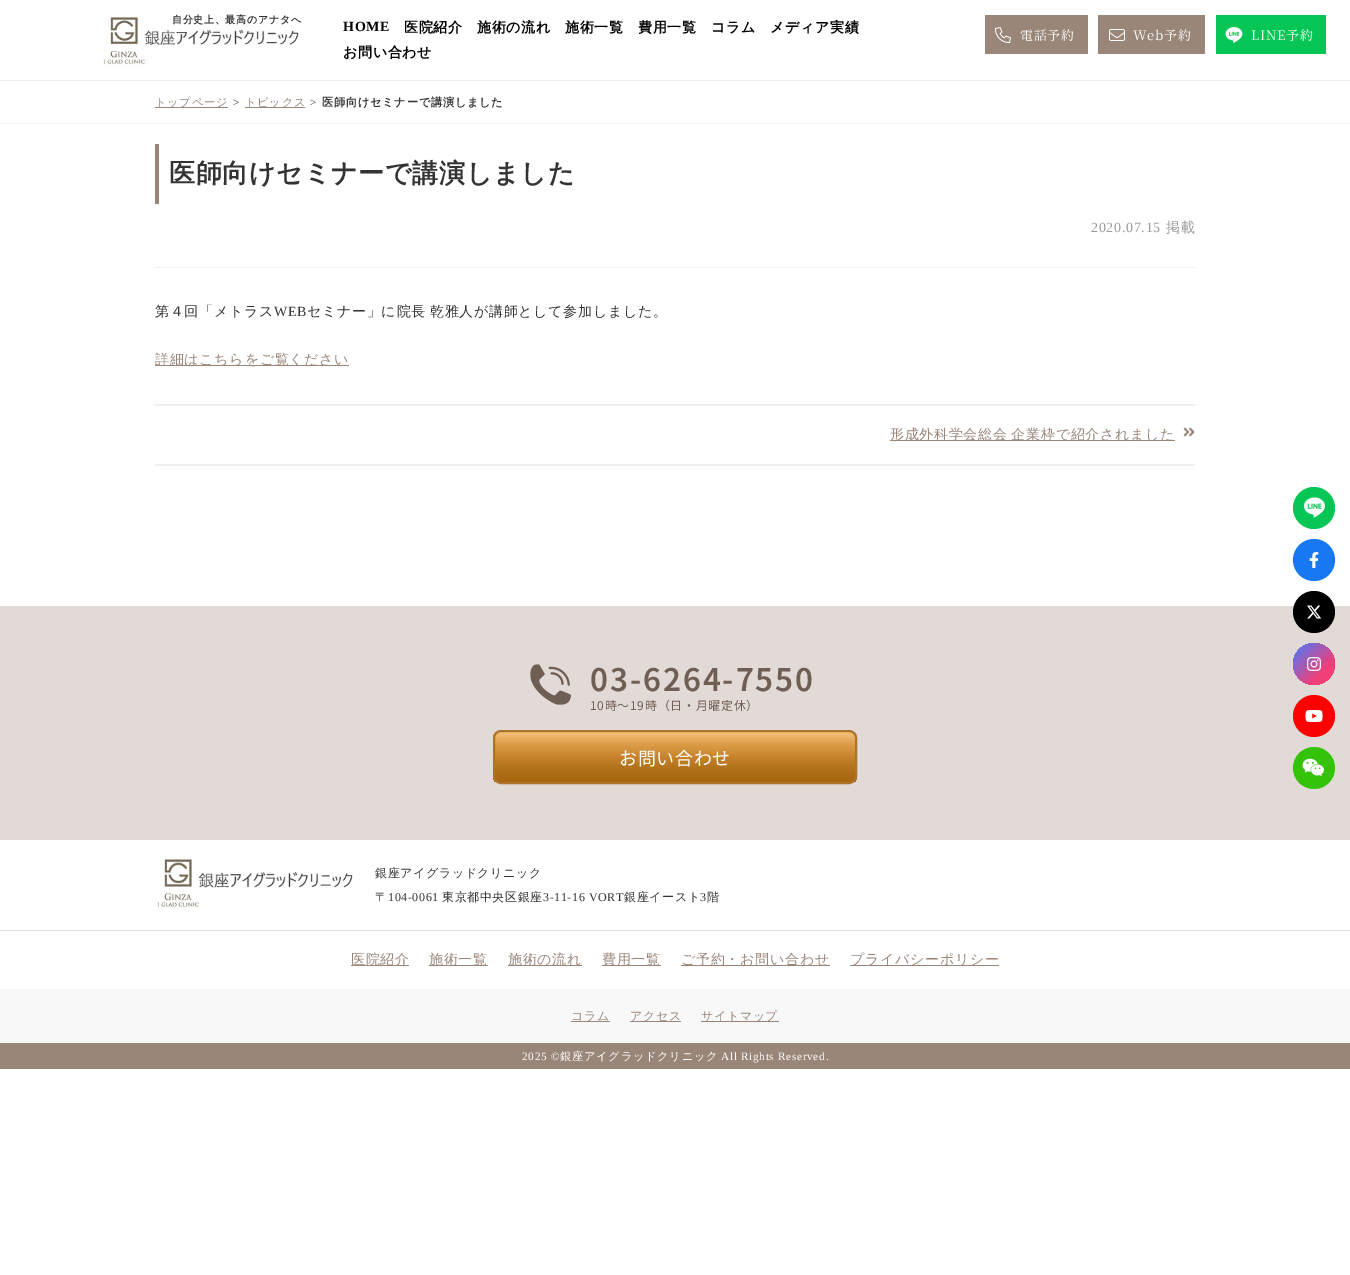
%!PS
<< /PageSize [1350 1275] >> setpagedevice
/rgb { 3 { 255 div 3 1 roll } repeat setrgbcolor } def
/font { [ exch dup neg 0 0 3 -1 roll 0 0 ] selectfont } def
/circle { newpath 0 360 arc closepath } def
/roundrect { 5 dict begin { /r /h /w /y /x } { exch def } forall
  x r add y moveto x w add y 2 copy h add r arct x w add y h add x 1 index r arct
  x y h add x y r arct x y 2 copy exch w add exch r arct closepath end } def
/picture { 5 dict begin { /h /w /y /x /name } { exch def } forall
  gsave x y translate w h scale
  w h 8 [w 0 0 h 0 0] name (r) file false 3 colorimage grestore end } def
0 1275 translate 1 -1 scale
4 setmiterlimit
255 255 255 rgb
0 0 1350 1275 rectfill
(img_01.rgb) 103 16 196 51 picture
153 134 121 rgb
985 15 103 39 rectfill
(img_02.rgb) 995 27 16 16 picture
1098 15 107 39 rectfill
(img_03.rgb) 1109 29 16 12 picture
6 199 85 rgb
1216 15 110 39 rectfill
(img_04.rgb) 1225 27 18 16 picture
238 238 238 rgb
0 80 1350 1 rectfill
0 123 1350 1 rectfill
153 134 121 rgb
155 107 73 1 rectfill
245 107 60 1 rectfill
238 238 238 rgb
155 267 1040 1 rectfill
153 134 121 rgb
155 144 4 60 rectfill
155 365 194 1 rectfill
238 238 238 rgb
155 404 1040 2 rectfill
155 464 1040 2 rectfill
153 134 121 rgb
890 440 285 1 rectfill
(img_05.rgb) 1183 427 12 10 picture
225 218 214 rgb
0 606 1350 234 rectfill
(img_06.rgb) 530 664 41 41 picture
gsave
493 730 364 54 8 roundrect clip newpath
gsave 493 732 moveto 364 0 rlineto 0 50 rlineto -364 0 rlineto closepath clip newpath
<< /ShadingType 2 /ColorSpace /DeviceRGB /Coords [675 782 675 732] /Extend [true true] /Function << /FunctionType 3 /Domain [0 1] /Functions [<< /FunctionType 2 /Domain [0 1] /C0 [0.655 0.396 0.055] /C1 [0.686 0.439 0.106] /N 1 >> << /FunctionType 2 /Domain [0 1] /C0 [0.686 0.439 0.106] /C1 [0.78 0.514 0.169] /N 1 >> << /FunctionType 2 /Domain [0 1] /C0 [0.78 0.514 0.169] /C1 [0.863 0.612 0.282] /N 1 >> << /FunctionType 2 /Domain [0 1] /C0 [0.863 0.612 0.282] /C1 [0.961 0.757 0.494] /N 1 >>] /Bounds [0.25 0.5 0.75] /Encode [0 1 0 1 0 1 0 1] >> >> shfill grestore
grestore
172 116 43 rgb
2 setlinewidth
494 731 362 52 7 roundrect stroke
6 199 85 rgb
1314 508 21 circle fill
(img_07.rgb) 1304 497 21 21 picture
24 119 242 rgb
1314 560 21 circle fill
(img_08.rgb) 1309 552 10 16 picture
0 0 0 rgb
1314 612 21 circle fill
(img_09.rgb) 1307 605 15 14 picture
gsave 1314 664 21 circle clip newpath
<< /ShadingType 2 /ColorSpace /DeviceRGB /Coords [1293 643 1335 685] /Extend [true true] /Function << /FunctionType 3 /Domain [0 1] /Functions [<< /FunctionType 2 /Domain [0 1] /C0 [0.259 0.494 1] /C1 [0.945 0.247 0.475] /N 1 >> << /FunctionType 2 /Domain [0 1] /C0 [0.945 0.247 0.475] /C1 [0.945 0.247 0.475] /N 1 >>] /Bounds [0.7] /Encode [0 1 0 1] >> >> shfill grestore
(img_10.rgb) 1307 657 14 14 picture
255 0 0 rgb
1314 716 21 circle fill
(img_11.rgb) 1305 710 18 12 picture
52 195 8 rgb
1314 768 21 circle fill
(img_12.rgb) 1302 758 22 19 picture
221 221 221 rgb
0 930 1350 1 rectfill
(img_13.rgb) 157 858 196 52 picture
153 134 121 rgb
351 965 58 1 rectfill
429 965 59 1 rectfill
508 965 74 1 rectfill
602 965 59 1 rectfill
681 965 149 1 rectfill
850 965 149 1 rectfill
248 248 248 rgb
0 989 1350 54 rectfill
153 134 121 rgb
571 1021 39 1 rectfill
630 1021 51 1 rectfill
701 1021 78 1 rectfill
0 1043 1350 26 rectfill
/WenQuanYiZenHei-Bold 10 font
51 51 51 rgb
172 23 moveto 0.7 0 (自分史上、最高のアナタへ) ashow
/LiberationSerif-Bold 14 font
0 0 0 rgb
343 31 moveto 0.7 0 (HOME) ashow
/WenQuanYiZenHei-Bold 14 font
404 32 moveto 0.7 0 (医院紹介) ashow
477 32 moveto 0.7 0 (施術の流れ) ashow
565 32 moveto 0.7 0 (施術一覧) ashow
638 32 moveto 0.7 0 (費用一覧) ashow
711 32 moveto 0.7 0 (コラム) ashow
770 32 moveto 0.7 0 (メディア実績) ashow
343 57 moveto 0.7 0 (お問い合わせ) ashow
/NotoSerifJP-Regular 13 font
255 255 255 rgb
1020 40 moveto 0.7 0 (電話予約) ashow
1133 40 moveto 0.7 0 (Web予約) ashow
1251 40 moveto 0.7 0 (LINE予約) ashow
/WenQuanYiZenHei-Medium 11.25 font
153 134 121 rgb
155 106 moveto 0.7 0 (トップページ) ashow
/LiberationSerif-Regular 11.25 font
51 51 51 rgb
233 106 moveto 0.7 0 (>) ashow
/WenQuanYiZenHei-Medium 11.25 font
153 134 121 rgb
245 106 moveto 0.7 0 (トピックス) ashow
/LiberationSerif-Regular 11.25 font
51 51 51 rgb
310 106 moveto 0.7 0 (>) ashow
/WenQuanYiZenHei-Bold 11.25 font
322 106 moveto 0.7 0 (医師向けセミナーで講演しました) ashow
/WenQuanYiZenHei-Bold 26 font
169 182 moveto 0.7 0 (医師向けセミナーで講演しました) ashow
/LiberationSerif-Regular 14 font
153 153 153 rgb
1091 232 moveto 0.7 0 (2020.07.15) ashow
/WenQuanYiZenHei-Medium 14 font
1166 232 moveto 0.7 0 (掲載) ashow
51 51 51 rgb
155 316 moveto 0.7 0 (第４回「メトラス) ashow
/LiberationSerif-Regular 14 font
274 316 moveto 0.7 0 (WEB) ashow
/WenQuanYiZenHei-Medium 14 font
307 316 moveto -1 0 32 0.7 0 (セミナー」に院長 乾雅人が講師として参加しました。) awidthshow
153 134 121 rgb
155 364 moveto 0.7 0 (詳細はこちらをご覧ください) ashow
890 439 moveto -1 0 32 0.7 0 (形成外科学会総会 企業枠で紹介されました) awidthshow
/NotoSansJP-SemiBold 31 font
111 94 83 rgb
590 691 moveto 1.9 0 (03-6264-7550) ashow
/NotoSansJP-Regular 12 font
590 710 moveto 0.7 0 (10時～19時（日・月曜定休）) ashow
/NotoSansJP-Regular 18 font
255 255 255 rgb
619 765 moveto 0.7 0 (お問い合わせ) ashow
/WenQuanYiZenHei-Medium 12 font
51 51 51 rgb
375 877 moveto 0.6 0 (銀座アイグラッドクリニック) ashow
375 901 moveto 0.6 0 (〒) ashow
/LiberationSerif-Regular 12 font
388 901 moveto 0.6 0 (104-0061) ashow
/WenQuanYiZenHei-Medium 12 font
442 901 moveto 0.6 0 (東京都中央区銀座) ashow
/LiberationSerif-Regular 12 font
543 901 moveto 0.6 0 (3-11-16 VORT) ashow
/WenQuanYiZenHei-Medium 12 font
624 901 moveto 0.6 0 (銀座イースト) ashow
/LiberationSerif-Regular 12 font
700 901 moveto 0.6 0 (3) ashow
/WenQuanYiZenHei-Medium 12 font
707 901 moveto 0.6 0 (階) ashow
/WenQuanYiZenHei-Medium 14 font
153 134 121 rgb
351 964 moveto 0.7 0 (医院紹介) ashow
429 964 moveto 0.7 0 (施術一覧) ashow
508 964 moveto 0.7 0 (施術の流れ) ashow
602 964 moveto 0.7 0 (費用一覧) ashow
681 964 moveto 0.7 0 (ご予約・お問い合わせ) ashow
850 964 moveto 0.7 0 (プライバシーポリシー) ashow
/WenQuanYiZenHei-Medium 12 font
571 1020 moveto 0.6 0 (コラム) ashow
630 1020 moveto 0.6 0 (アクセス) ashow
701 1020 moveto 0.6 0 (サイトマップ) ashow
/LiberationSerif-Regular 11.25 font
255 255 255 rgb
522 1060 moveto 0.7 0 (2025 ©) ashow
/WenQuanYiZenHei-Medium 11.25 font
560 1060 moveto 0.7 0 (銀座アイグラッドクリニック) ashow
/LiberationSerif-Regular 11.25 font
721 1060 moveto 0.7 0 (All Rights Reserved.) ashow
showpage
